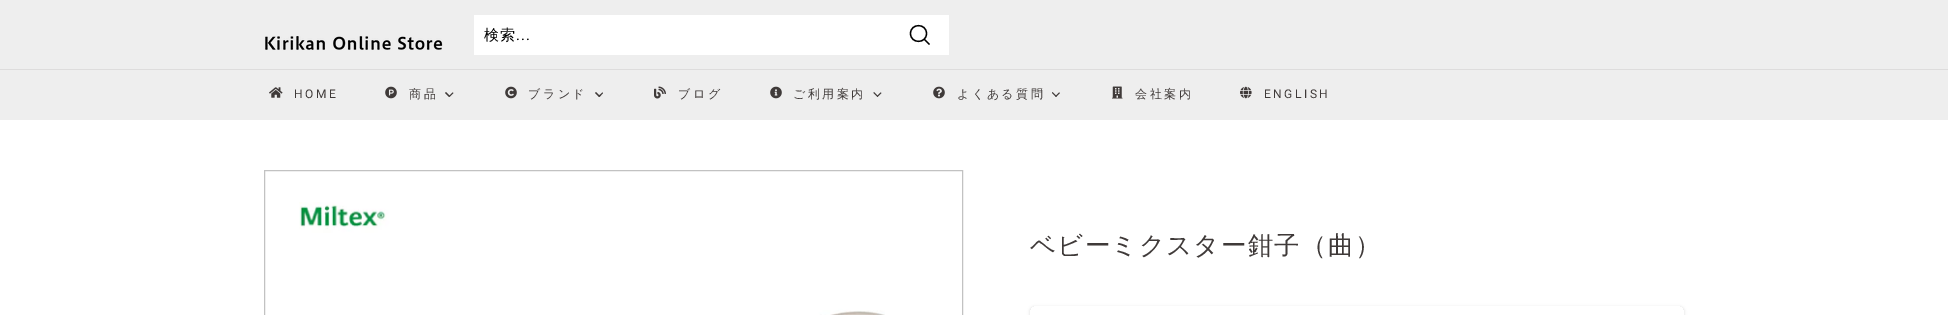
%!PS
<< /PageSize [1948 315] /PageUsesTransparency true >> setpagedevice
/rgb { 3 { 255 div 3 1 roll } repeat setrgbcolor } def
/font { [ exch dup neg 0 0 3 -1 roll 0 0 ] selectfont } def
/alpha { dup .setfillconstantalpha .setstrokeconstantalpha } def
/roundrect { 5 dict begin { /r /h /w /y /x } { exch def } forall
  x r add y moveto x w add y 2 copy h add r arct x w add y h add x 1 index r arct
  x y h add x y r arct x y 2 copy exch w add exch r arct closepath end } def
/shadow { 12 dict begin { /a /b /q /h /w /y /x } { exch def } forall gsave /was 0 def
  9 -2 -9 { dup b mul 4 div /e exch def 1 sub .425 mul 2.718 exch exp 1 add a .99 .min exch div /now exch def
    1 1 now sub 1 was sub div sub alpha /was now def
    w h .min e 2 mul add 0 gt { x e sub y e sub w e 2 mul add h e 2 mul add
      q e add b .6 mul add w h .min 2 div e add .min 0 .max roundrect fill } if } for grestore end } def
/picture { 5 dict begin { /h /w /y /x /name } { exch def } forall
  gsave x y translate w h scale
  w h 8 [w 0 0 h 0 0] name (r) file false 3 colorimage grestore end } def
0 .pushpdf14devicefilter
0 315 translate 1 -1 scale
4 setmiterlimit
255 255 255 rgb
0 0 1948 315 rectfill
238 238 238 rgb
0 0 1948 69 rectfill
(img_01.rgb) 265 36 178 14 picture
255 255 255 rgb
474 15 475 40 rectfill
0 0 0 rgb
1.3 setlinewidth
926.5 33.5 moveto 0 10.5 -16 10.5 -16 0 rcurveto 0 -10.5 16 -10.5 16 0 rcurveto closepath 929.5 44.5 moveto -5 -5 rlineto stroke
221 220 220 rgb
0 69 1948 1 rectfill
238 238 238 rgb
0 70 1948 50 rectfill
(img_02.rgb) 269 87 14 11 picture
(img_03.rgb) 385 86 12 13 picture
63 58 57 rgb
452.5 92.5 moveto 1 0.5 rlineto -4 4 rlineto -0.5 -1 rlineto closepath fill
446 92 moveto 4 4 rlineto -1 1 rlineto -4 -4 rlineto closepath fill
(img_04.rgb) 505 86 12 13 picture
602.5 92.5 moveto 0.5 0.5 rlineto -3.5 4 rlineto -1 -1 rlineto closepath fill
596 92 moveto 4 4 rlineto -1 1 rlineto -4 -4 rlineto closepath fill
(img_05.rgb) 654 86 12 13 picture
(img_06.rgb) 770 86 12 13 picture
880.5 92.5 moveto 1 0.5 rlineto -4 4 rlineto -0.5 -1 rlineto closepath fill
874 92 moveto 4 4 rlineto -0.5 1 rlineto -4 -4 rlineto closepath fill
(img_07.rgb) 933 86 12 13 picture
1059 92.5 moveto 1 0.5 rlineto -4 4 rlineto -0.5 -1 rlineto closepath fill
1052.5 92 moveto 4 4 rlineto -0.5 1 rlineto -4 -4 rlineto closepath fill
(img_08.rgb) 1112 86 11 13 picture
(img_09.rgb) 1240 86 12 13 picture
194 194 194 rgb
1 setlinewidth
264.5 170.5 698 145 rectstroke
(img_10.rgb) 299 202 586 113 picture
gsave
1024 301 moveto 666 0 rlineto 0 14 rlineto -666 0 rlineto closepath 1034 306 moveto 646 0 rlineto 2 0 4 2 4 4 rcurveto 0 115 rlineto 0 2 -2 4 -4 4 rcurveto -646 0 rlineto -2 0 -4 -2 -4 -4 rcurveto 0 -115 rlineto 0 -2 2 -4 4 -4 rcurveto closepath eoclip newpath
0 0 0 rgb
1030 307 654 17 4 1.5 0.12 shadow
grestore
/WenQuanYiZenHei-Medium 15 font
0 0 0 rgb
484 40 moveto 1 0 (検索) ashow
/Roboto-Regular 15 font
516 40 moveto 1 0 (...) ashow
/Roboto-Regular 12 font
63 58 57 rgb
294 98 moveto 2.5 0 (HOME) ashow
/WenQuanYiZenHei-Medium 12 font
409 98 moveto 2.5 0 (商品) ashow
528 98 moveto 2.5 0 (ブランド) ashow
678 98 moveto 2.5 0 (ブログ) ashow
793 98 moveto 2.5 0 (ご利用案内) ashow
957 98 moveto 2.5 0 (よくある質問) ashow
1135 98 moveto 2.5 0 (会社案内) ashow
/Roboto-Regular 12 font
1264 98 moveto 2.5 0 (ENGLISH) ashow
/WenQuanYiZenHei-Medium 25.5 font
1030 254 moveto 1.25 0 (ベビーミクスター鉗子（曲）) ashow
.poppdf14devicefilter showpage
